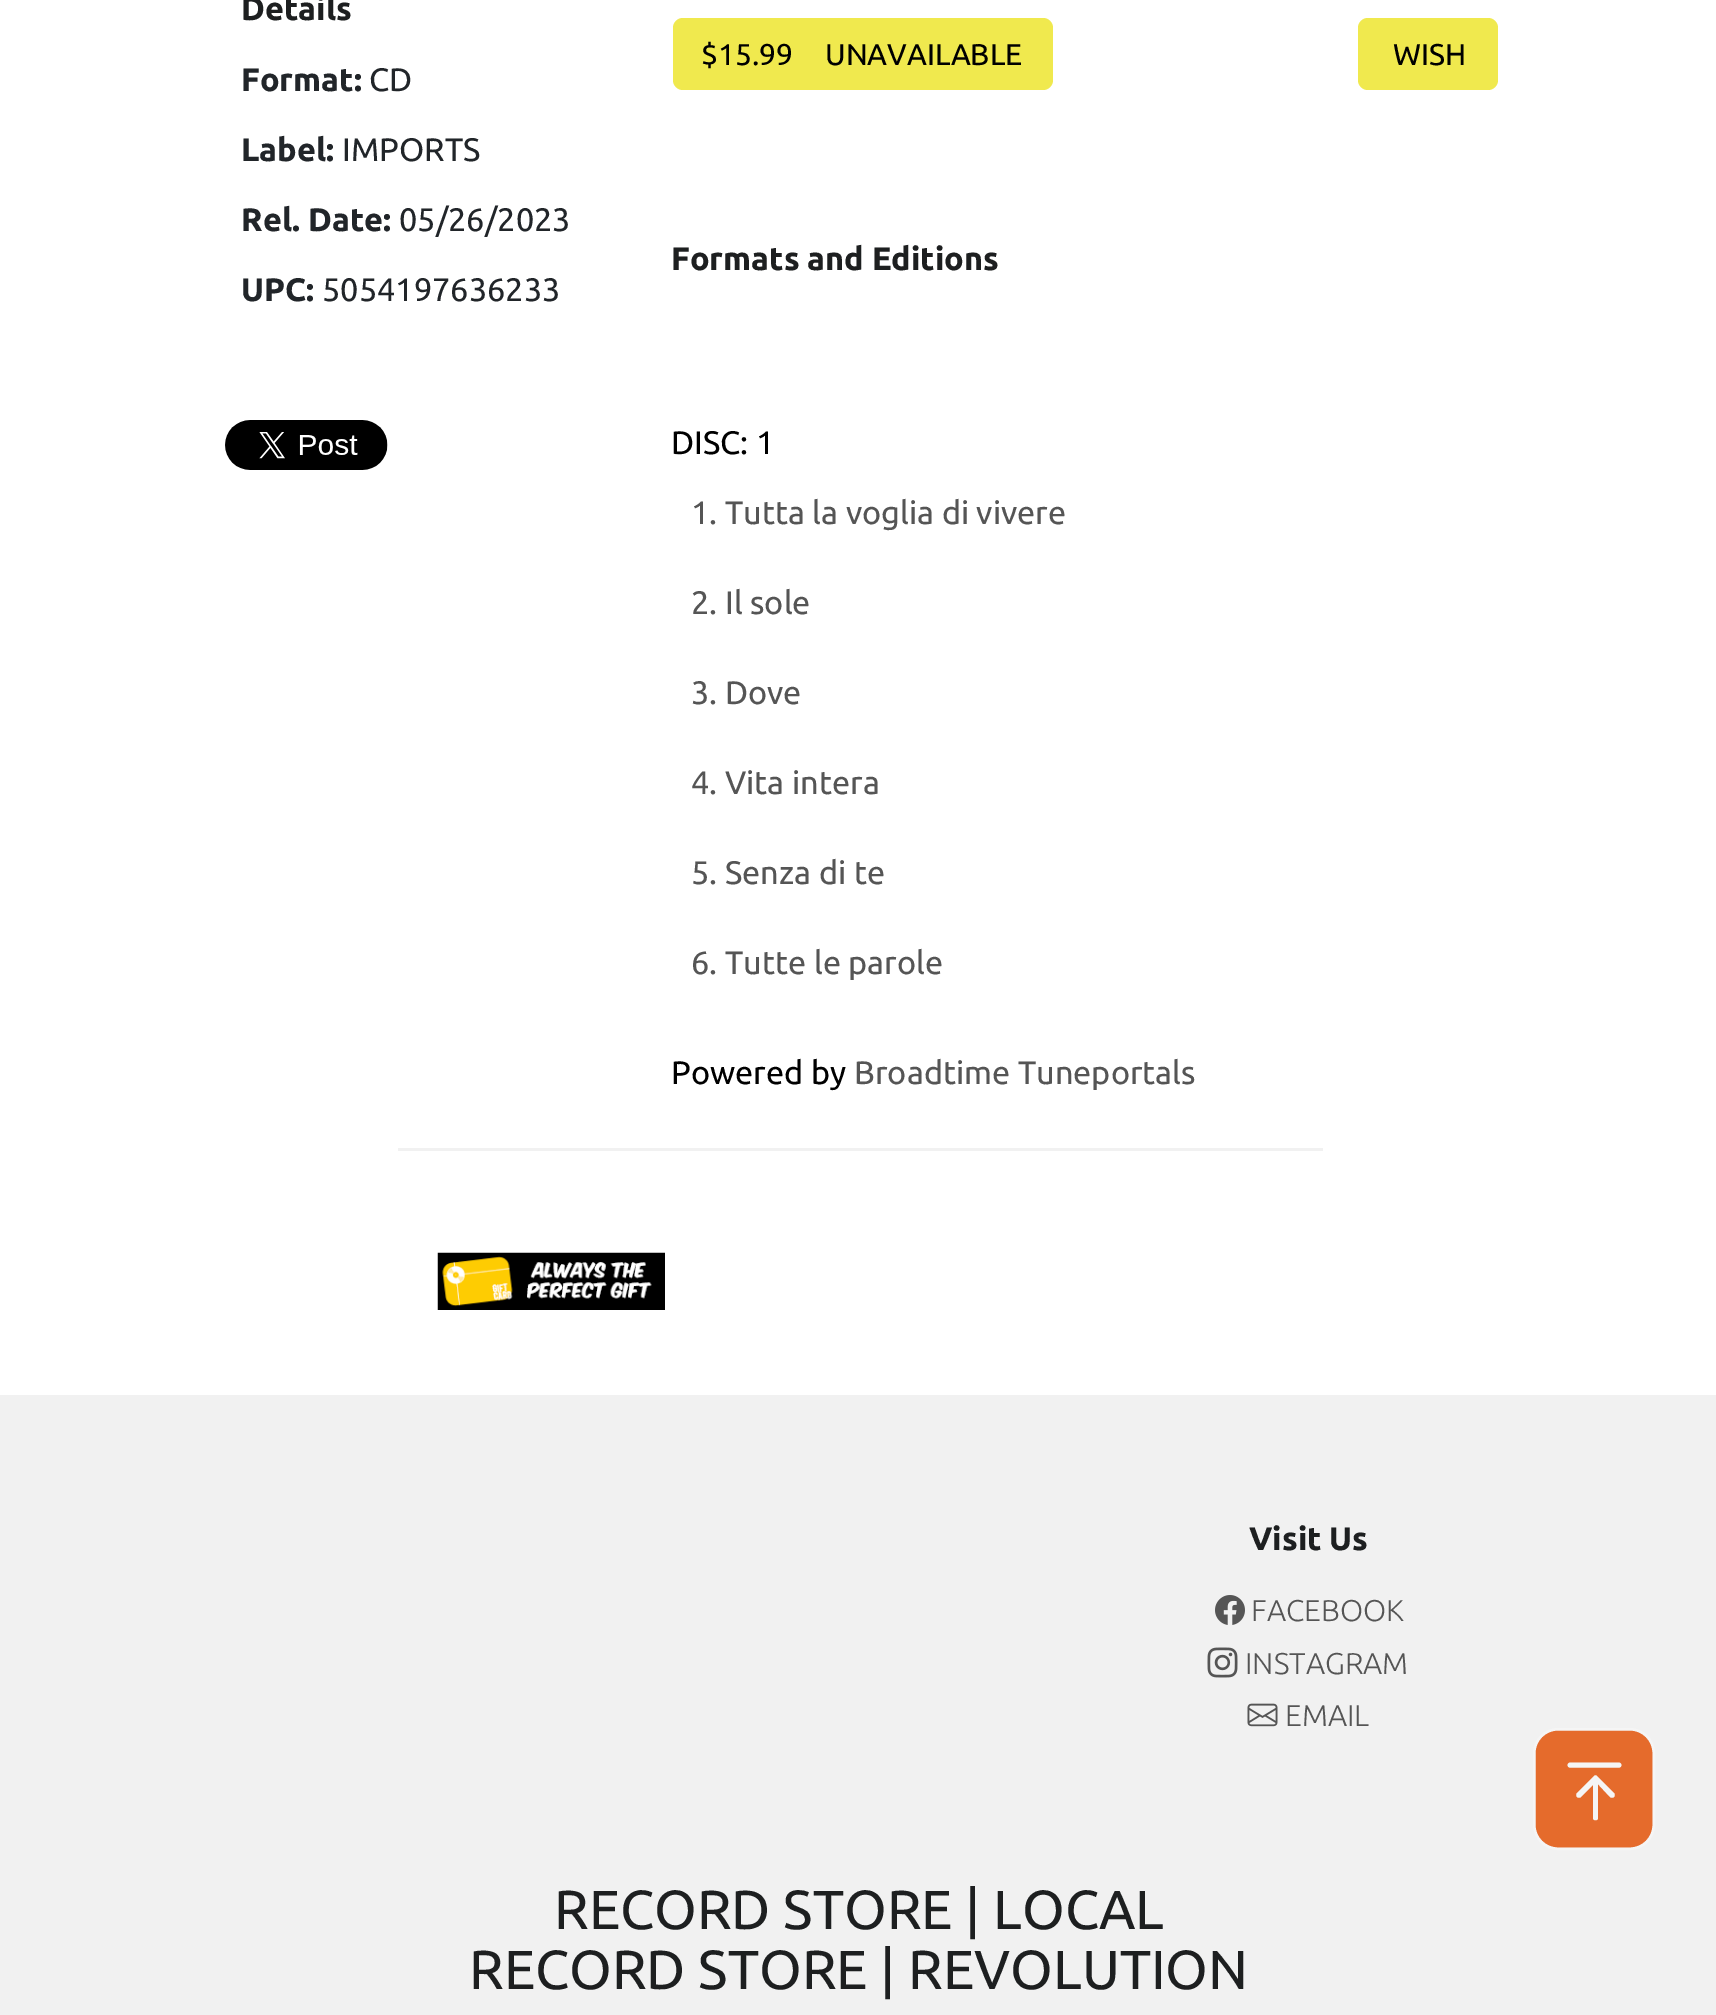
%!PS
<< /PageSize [1716 2015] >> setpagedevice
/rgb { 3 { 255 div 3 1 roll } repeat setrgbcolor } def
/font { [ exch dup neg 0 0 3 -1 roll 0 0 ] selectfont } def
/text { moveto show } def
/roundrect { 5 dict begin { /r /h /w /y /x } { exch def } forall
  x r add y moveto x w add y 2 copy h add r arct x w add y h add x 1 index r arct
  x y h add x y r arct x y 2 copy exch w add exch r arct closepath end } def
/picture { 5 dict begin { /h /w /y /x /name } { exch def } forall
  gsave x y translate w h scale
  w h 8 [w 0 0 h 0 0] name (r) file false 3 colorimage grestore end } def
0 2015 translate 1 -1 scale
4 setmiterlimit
255 255 255 rgb
0 0 1716 2015 rectfill
(img_01.rgb) 225 420 163 50 picture
240 233 78 rgb
673 18 380 72 10 roundrect fill
1358 18 140 72 10 roundrect fill
241 241 241 rgb
398 1148 925 3 rectfill
(img_02.rgb) 437 1252 228 58 picture
0 1395 1716 620 rectfill
(img_03.rgb) 1215 1595 30 30 picture
(img_04.rgb) 1207 1647 31 31 picture
(img_05.rgb) 1247 1703 31 24 picture
229 107 44 rgb
1534.25 1729.25 119.5 119.5 23.75 roundrect gsave fill grestore
245 245 245 rgb
2.5 setlinewidth
stroke
4.9 setlinewidth
1 setlinecap
1570 1765 moveto 49 0 rlineto stroke
1593 1818 moveto 0 3 5 3 5 0 rcurveto closepath 1597 1776 moveto -1 -1 -2 -1 -3 0 rcurveto -17 17 rlineto -1 1 -1 3 0 4 rcurveto 1 1 3 1 4 0 rcurveto 15 -15 rlineto 14 15 rlineto 1 1 3 1 4 0 rcurveto 1 -1 1 -3 0 -4 rcurveto closepath 1598 1818 moveto 0 -40 rlineto -5 0 rlineto 0 40 rlineto closepath fill
/Ubuntu-Bold 32.5 font
29 31 32 rgb
(Details) 241 20 text
33 37 41 rgb
(Format:) 241 91 text
/Ubuntu-Regular 32.5 font
(CD) 369 91 text
/Ubuntu-Bold 32.5 font
(Label:) 241 161 text
/Ubuntu-Regular 32.5 font
(IMPORTS) 342 161 text
/Ubuntu-Bold 32.5 font
(Rel. Date:) 241 231 text
/Ubuntu-Regular 32.5 font
(05/26/2023) 399 231 text
/Ubuntu-Bold 32.5 font
(UPC:) 241 301 text
/Ubuntu-Regular 32.5 font
(5054197636233) 322 301 text
/Ubuntu-Regular 30 font
0 0 0 rgb
($15.99) 701 65 text
(UNAVAILABLE) 825 65 text
(WISH) 1393 65 text
/Ubuntu-Bold 32.5 font
29 31 32 rgb
(Formats and Editions) 671 270 text
/Ubuntu-Regular 32.5 font
0 0 0 rgb
(DISC: 1) 671 454 text
85 85 85 rgb
(1. Tutta la voglia di vivere) 691 524 text
(2. Il sole) 691 614 text
(3. Dove) 691 704 text
(4. Vita intera) 691 794 text
(5. Senza di te) 691 884 text
(6. Tutte le parole) 691 974 text
0 0 0 rgb
(Powered by) 671 1084 text
85 85 85 rgb
(Broadtime Tuneportals) 854 1084 text
/Ubuntu-Bold 32.5 font
29 31 32 rgb
(Visit Us) 1249 1550 text
/Ubuntu-Light 30 font
85 85 85 rgb
(FACEBOOK) 1251 1621 text
(INSTAGRAM) 1245 1674 text
(EMAIL) 1285 1726 text
/Ubuntu-Regular 55 font
29 31 32 rgb
(RECORD STORE | LOCAL) 554 1929 text
(RECORD STORE | REVOLUTION) 469 1989 text
showpage
